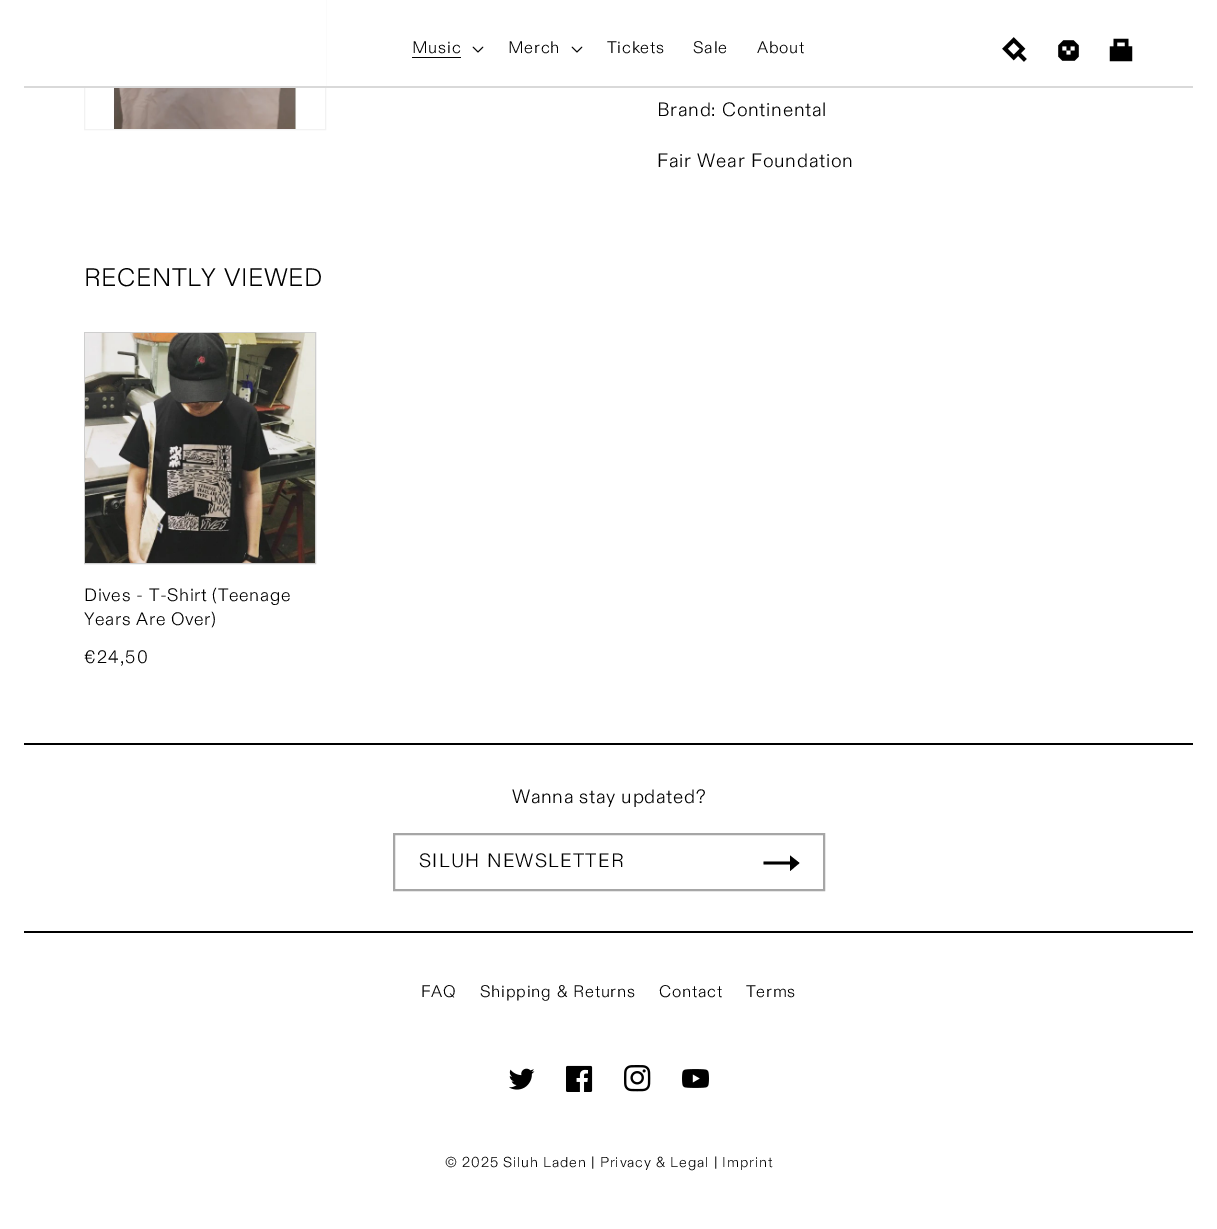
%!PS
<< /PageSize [1217 1229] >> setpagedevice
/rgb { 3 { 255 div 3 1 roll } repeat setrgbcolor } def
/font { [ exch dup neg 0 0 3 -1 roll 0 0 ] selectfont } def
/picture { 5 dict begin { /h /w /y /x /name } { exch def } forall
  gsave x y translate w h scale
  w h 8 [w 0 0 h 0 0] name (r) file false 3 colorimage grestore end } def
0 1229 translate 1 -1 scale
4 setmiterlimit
255 255 255 rgb
0 0 1217 1229 rectfill
242 242 242 rgb
84.5 -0.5 241 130 rectstroke
255 255 255 rgb
84 0 242 86 rectfill
217 217 217 rgb
24 86 1169 2 rectfill
0 0 0 rgb
412 57 49 1 rectfill
(img_01.rgb) 472 46 12 7 picture
(img_01.rgb) 571 46 12 7 picture
(img_02.rgb) 1002 37 25 25 picture
(img_03.rgb) 1058 40 21 21 picture
(img_04.rgb) 1109 38 24 24 picture
(img_05.rgb) 113 88 184 41 picture
206 206 206 rgb
84.5 332.5 231 231 rectstroke
(img_06.rgb) 85 333 230 230 picture
0 0 0 rgb
24 743 1169 2 rectfill
24 931 1169 2 rectfill
166 166 166 rgb
2 setlinewidth
394 834 430 56 rectstroke
0 0 0 rgb
790 871 moveto 0 -6.5 rlineto -26.5 0 rlineto 0 -3 rlineto 26.5 0 rlineto 0 -6 rlineto 9.5 7.5 rlineto closepath eofill
(img_07.rgb) 509 1068 26 22 picture
(img_08.rgb) 566 1065 27 27 picture
(img_09.rgb) 624 1065 27 27 picture
(img_10.rgb) 682 1069 27 19 picture
/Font-Light 16.75 font
412 53 moveto 0.75 0 (Music) ashow
508 53 moveto 0.75 0 (Merch) ashow
607 53 moveto 0.75 0 (Tickets) ashow
693 53 moveto 0.75 0 (Sale) ashow
757 53 moveto 0.75 0 (About) ashow
/Font-Light 19.25 font
657 116 moveto 0.75 0 (Brand: Continental) ashow
657 167 moveto 0.75 0 (Fair Wear Foundation) ashow
/Font-Light 25.25 font
84 286 moveto 0.6 0 (RECENTLY VIEWED) ashow
/Font-Light 18 font
84 601 moveto 0.6 0 (Dives - T-Shirt \(Teenage) ashow
84 625 moveto 0.6 0 (Years Are Over\)) ashow
84 663 moveto 1.25 0 (€24,50) ashow
/Font-Light 19.25 font
512 803 moveto 0.6 0 (Wanna stay updated?) ashow
419 867 moveto 1.25 0 (SILUH NEWSLETTER) ashow
/Font-Light 16.75 font
421 997 moveto 0.75 0 (FAQ) ashow
480 997 moveto 0.75 0 (Shipping & Returns) ashow
659 997 moveto 0.75 0 (Contact) ashow
746 997 moveto 0.75 0 (Terms) ashow
/Font-Light 14.4 font
445 1167 moveto 0.85 0 (© 2025 Siluh Laden | Privacy & Legal | Imprint) ashow
showpage
